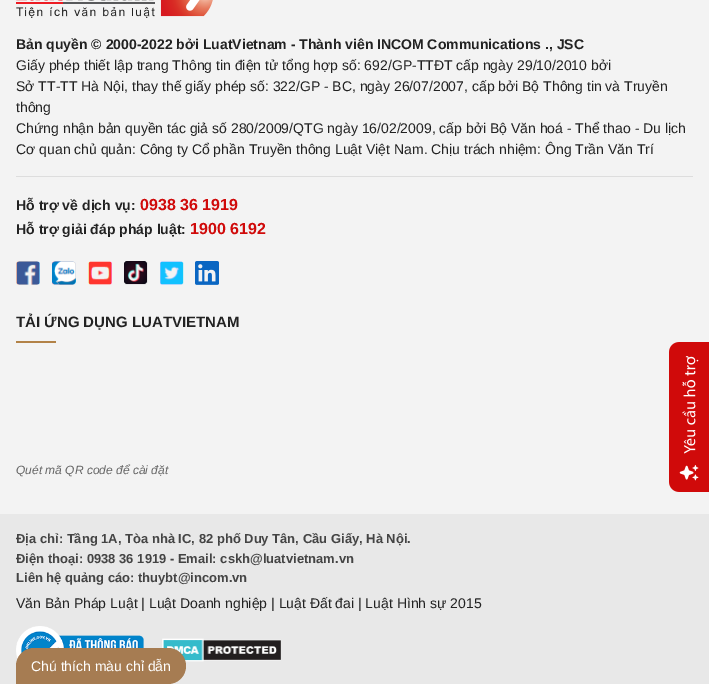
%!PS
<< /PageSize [709 684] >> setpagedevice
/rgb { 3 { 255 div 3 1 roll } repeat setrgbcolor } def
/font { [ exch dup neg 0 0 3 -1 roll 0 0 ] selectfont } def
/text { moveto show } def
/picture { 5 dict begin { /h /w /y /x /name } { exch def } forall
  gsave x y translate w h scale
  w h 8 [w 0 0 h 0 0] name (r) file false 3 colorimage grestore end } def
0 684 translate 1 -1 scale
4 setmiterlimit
243 243 243 rgb
0 0 709 684 rectfill
221 221 221 rgb
16 176 677 1 rectfill
(img_01.rgb) 16 0 197 18 picture
(img_02.rgb) 16 261 24 24 picture
(img_03.rgb) 52 261 24 24 picture
(img_04.rgb) 88 261 24 24 picture
(img_05.rgb) 124 261 24 24 picture
(img_06.rgb) 160 261 24 24 picture
(img_07.rgb) 195 261 24 24 picture
178 130 71 rgb
16 341 40 2 rectfill
(img_08.rgb) 669 342 40 150 picture
232 232 232 rgb
0 514 709 170 rectfill
(img_09.rgb) 16 626 128 33 picture
(img_10.rgb) 162 638 119 24 picture
166 124 82 rgb
34 648 moveto 134 0 rlineto 10 0 18 8 18 18 rcurveto 0 10 -8 18 -18 18 rcurveto -152 0 rlineto 0 -18 rlineto 0 -10 8 -18 18 -18 rcurveto closepath fill
/LiberationSans-Bold 14 font
34 34 34 rgb
(Bản quyền © 2000-2022 bởi LuatVietnam - Thành viên INCOM Communications ., JSC) 16 49 text
/LiberationSans-Regular 14 font
(Giấy phép thiết lập trang Thông tin điện tử tổng hợp số: 692/GP-TTĐT cấp ngày 29/10/2010 bởi) 16 70 text
(Sở TT-TT Hà Nội, thay thế giấy phép số: 322/GP - BC, ngày 26/07/2007, cấp bởi Bộ Thông tin và Truyền) 16 91 text
(thông) 16 112 text
(Chứng nhận bản quyền tác giả số 280/2009/QTG ngày 16/02/2009, cấp bởi Bộ Văn hoá - Thể thao - Du lịch) 16 133 text
(Cơ quan chủ quản: Công ty Cổ phần Truyền thông Luật Việt Nam. Chịu trách nhiệm: Ông Trần Văn Trí) 16 154 text
/LiberationSans-Bold 14 font
(Hỗ trợ về dịch vụ:) 16 210 text
/LiberationSans-Bold 16 font
208 10 10 rgb
(0938 36 1919) 140 210 text
/LiberationSans-Bold 14 font
34 34 34 rgb
(Hỗ trợ giải đáp pháp luật:) 16 234 text
/LiberationSans-Bold 16 font
208 10 10 rgb
(1900 6192) 190 234 text
/LiberationSans-Bold 15 font
34 34 34 rgb
(TẢI ỨNG DỤNG LUATVIETNAM) 16 327 text
/LiberationSans-Italic 12 font
102 102 102 rgb
(Quét mã QR code để cài đặt) 16 474 text
/LiberationSans-Bold 13 font
68 68 68 rgb
(Địa chỉ: Tầng 1A, Tòa nhà IC, 82 phố Duy Tân, Cầu Giấy, Hà Nội.) 16 543 text
(Điện thoại: 0938 36 1919 - Email: cskh@luatvietnam.vn) 16 563 text
(Liên hệ quảng cáo: thuybt@incom.vn) 16 582 text
/LiberationSans-Regular 14 font
34 34 34 rgb
(Văn Bản Pháp Luật | Luật Doanh nghiệp | Luật Đất đai | Luật Hình sự 2015) 16 608 text
255 255 255 rgb
(Chú thích màu chỉ dẫn) 31 671 text
showpage
